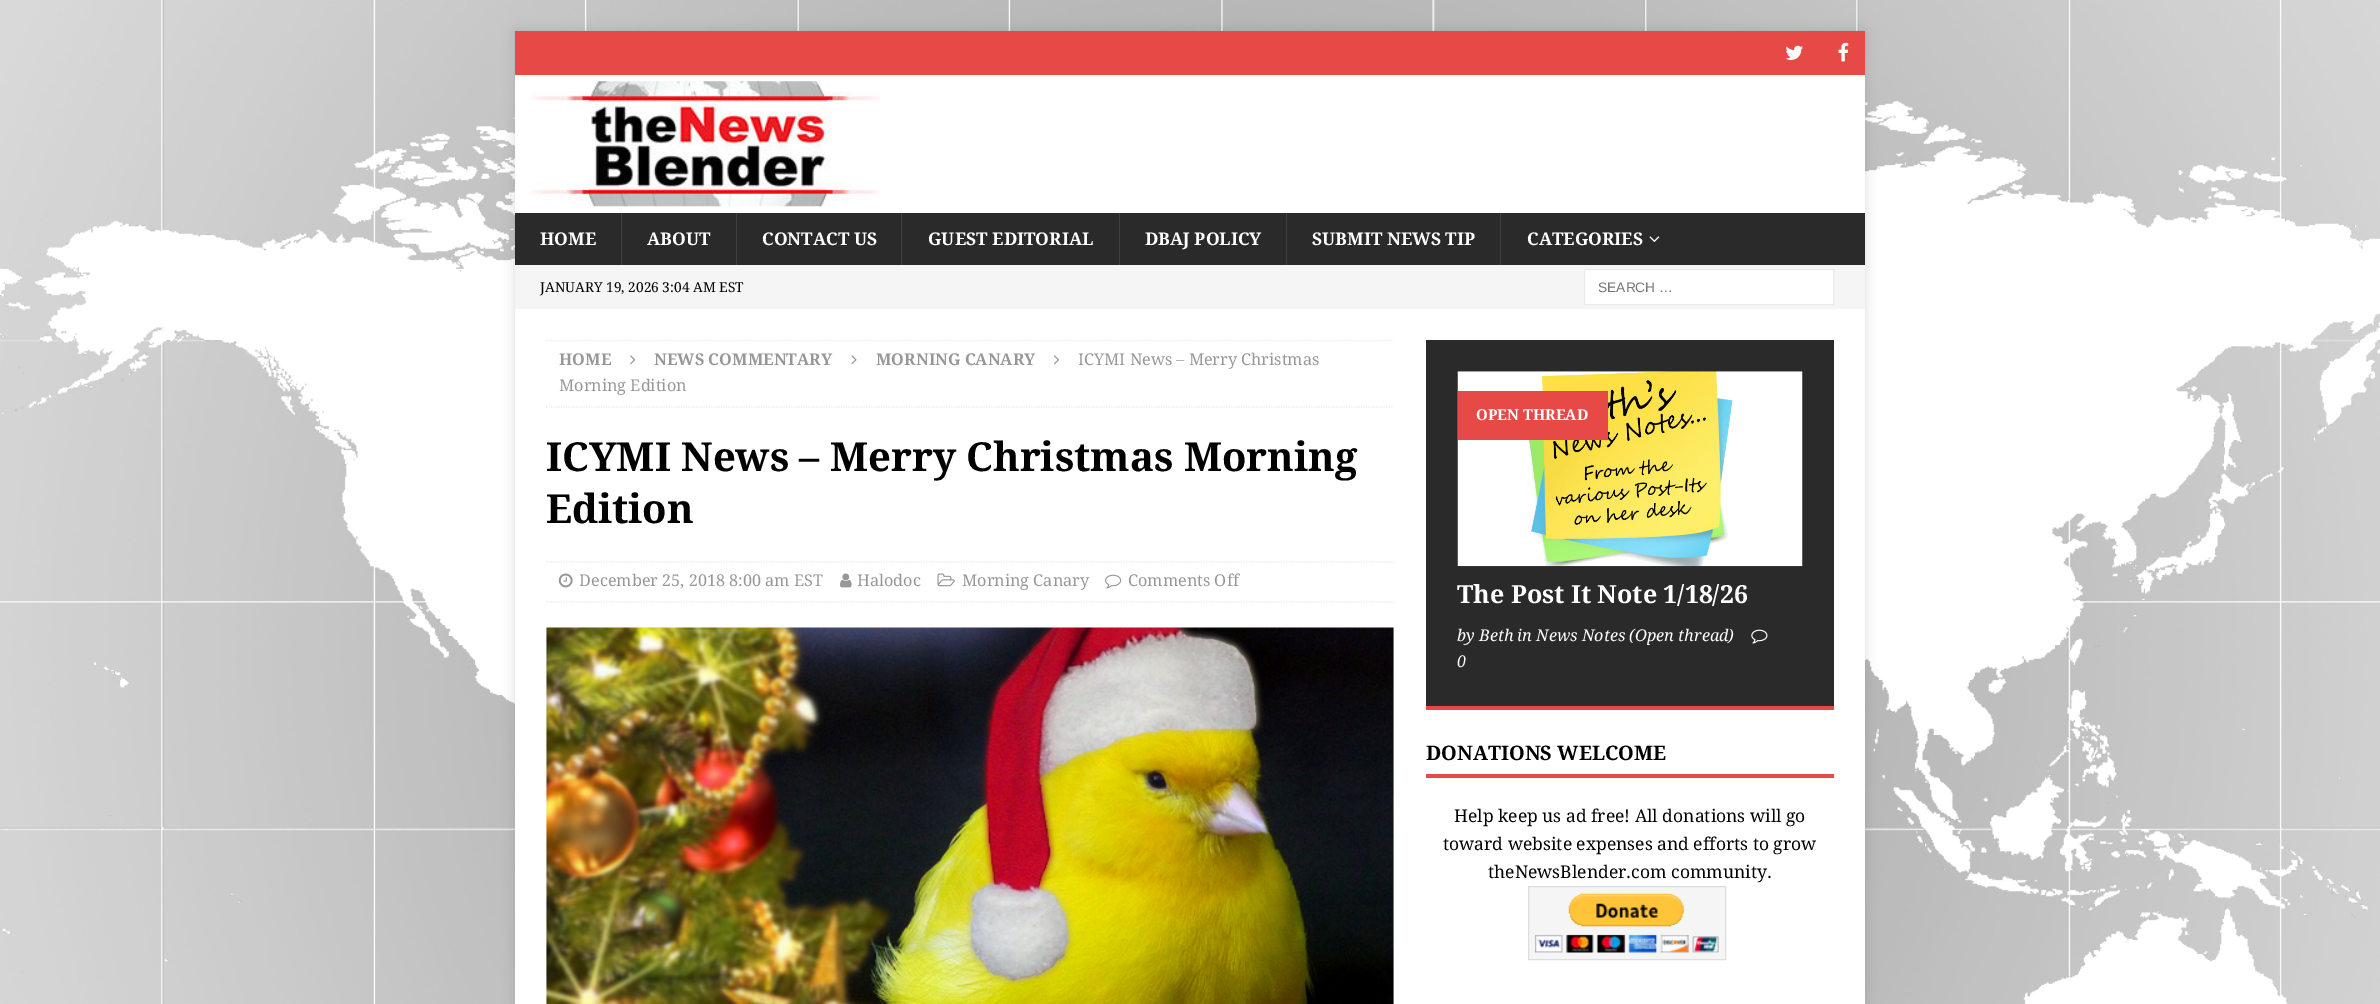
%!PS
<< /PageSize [2380 1004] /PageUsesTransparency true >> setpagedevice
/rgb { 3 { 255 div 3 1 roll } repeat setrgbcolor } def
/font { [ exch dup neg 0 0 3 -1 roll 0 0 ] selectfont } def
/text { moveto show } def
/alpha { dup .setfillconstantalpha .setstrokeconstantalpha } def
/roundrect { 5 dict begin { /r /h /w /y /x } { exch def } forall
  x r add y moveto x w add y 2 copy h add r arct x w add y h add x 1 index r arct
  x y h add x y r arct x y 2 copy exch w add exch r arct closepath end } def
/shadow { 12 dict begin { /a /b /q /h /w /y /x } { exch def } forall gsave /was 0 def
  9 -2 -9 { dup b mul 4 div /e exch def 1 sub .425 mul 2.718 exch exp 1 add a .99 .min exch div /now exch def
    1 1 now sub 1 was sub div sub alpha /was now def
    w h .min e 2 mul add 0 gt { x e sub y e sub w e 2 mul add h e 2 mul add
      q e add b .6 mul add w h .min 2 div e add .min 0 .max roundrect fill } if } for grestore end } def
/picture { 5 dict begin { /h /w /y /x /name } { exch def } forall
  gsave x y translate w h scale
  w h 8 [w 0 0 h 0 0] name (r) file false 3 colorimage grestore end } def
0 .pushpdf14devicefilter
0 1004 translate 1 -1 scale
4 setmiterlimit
255 255 255 rgb
0 0 2380 1004 rectfill
(img_01.rgb) 0 0 2380 1004 picture
50 50 50 rgb
515 31 1350 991 0 6 0.17 shadow
230 73 70 rgb
515 31 1350 44 rectfill
(img_02.rgb) 1785 45 18 15 picture
(img_03.rgb) 1838 42 11 20 picture
255 255 255 rgb
515 75 1350 138 rectfill
(img_04.rgb) 531 81 350 126 picture
42 42 42 rgb
515 213 1350 52 rectfill
63 63 63 rgb
621 213 1 52 rectfill
736 213 1 52 rectfill
901 213 1 52 rectfill
1119 213 1 52 rectfill
1286 213 1 52 rectfill
1500 213 1 52 rectfill
(img_05.rgb) 1649 236 11 6 picture
245 245 245 rgb
515 265 1350 44 rectfill
255 255 255 rgb
1584.5 269.5 moveto 249 0 rlineto 0 35 rlineto -249 0 rlineto closepath gsave fill grestore
235 235 235 rgb
stroke
255 255 255 rgb
515 309 1350 695 rectfill
gsave
546 340 848 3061 rectclip
235 235 235 rgb
1.2 setlinewidth
[1.25 1.25] 0 setdash
546 340.5 moveto 848 0 rlineto stroke
grestore
235 235 235 rgb
1.2 setlinewidth
[1.25 1.25] 0 setdash
546 407 moveto 848 0 rlineto stroke
(img_06.rgb) 630 355 6 10 picture
(img_07.rgb) 851 355 6 10 picture
(img_08.rgb) 1053 355 7 10 picture
546 562 moveto 848 0 rlineto stroke
546 602 moveto 848 0 rlineto stroke
(img_09.rgb) 558 573 15 15 picture
(img_10.rgb) 840 573 12 15 picture
(img_11.rgb) 937 573 18 14 picture
(img_12.rgb) 1105 574 17 15 picture
(img_13.rgb) 546 627 848 377 picture
42 42 42 rgb
1426 340 408 366 rectfill
230 73 70 rgb
1426 706 408 4 rectfill
(img_14.rgb) 1457 371 346 196 picture
1458 391 150 49 rectfill
(img_15.rgb) 1751 629 17 15 picture
1426 774 408 4 rectfill
245 245 245 rgb
1528.5 886.5 moveto 197 0 rlineto 0 73 rlineto -197 0 rlineto closepath gsave fill grestore
221 221 221 rgb
1 setlinewidth
[] 0 setdash
stroke
(img_16.rgb) 1535 893 184 60 picture
/DroidSerif-Bold 17.5 font
255 255 255 rgb
(HOME) 540 245 text
(ABOUT) 647 245 text
(CONTACT US) 762 245 text
(GUEST EDITORIAL) 928 245 text
(DBAJ POLICY) 1145 245 text
(SUBMIT NEWS TIP) 1312 245 text
(CATEGORIES) 1527 245 text
/DroidSerif-Regular 13.75 font
0 0 0 rgb
(JANUARY 19, 2026 3:04 AM EST) 540 292 text
/LiberationSans-Regular 13.75 font
117 117 117 rgb
(SEARCH …) 1598 292 text
/DroidSerif-Bold 16.25 font
151 151 151 rgb
(HOME) 559 365 text
(NEWS COMMENTARY) 654 365 text
(MORNING CANARY) 876 365 text
/DroidSerif-Regular 16.25 font
(ICYMI News – Merry Christmas) 1078 365 text
(Morning Edition) 559 391 text
/DroidSerif-Bold 40 font
0 0 0 rgb
(ICYMI News – Merry Christmas Morning) 546 471 text
(Edition) 546 523 text
/DroidSerif-Regular 16.25 font
151 151 151 rgb
(December 25, 2018 8:00 am EST) 579 586 text
(Halodoc) 857 586 text
(Morning Canary) 962 586 text
(Comments Off) 1128 586 text
/DroidSerif-Bold 15 font
255 255 255 rgb
(OPEN THREAD) 1476 420 text
/DroidSerif-Bold 25 font
(The Post It Note 1/18/26) 1457 603 text
/DroidSerif-Italic 16.25 font
(by Beth in News Notes \(Open thread\)) 1457 641 text
(0) 1457 667 text
/DroidSerif-Bold 20 font
0 0 0 rgb
(DONATIONS WELCOME) 1426 760 text
/DroidSerif-Regular 17.5 font
(Help keep us ad free! All donations will go) 1454 822 text
(toward website expenses and efforts to grow) 1443 850 text
(theNewsBlender.com community.) 1488 878 text
.poppdf14devicefilter showpage
